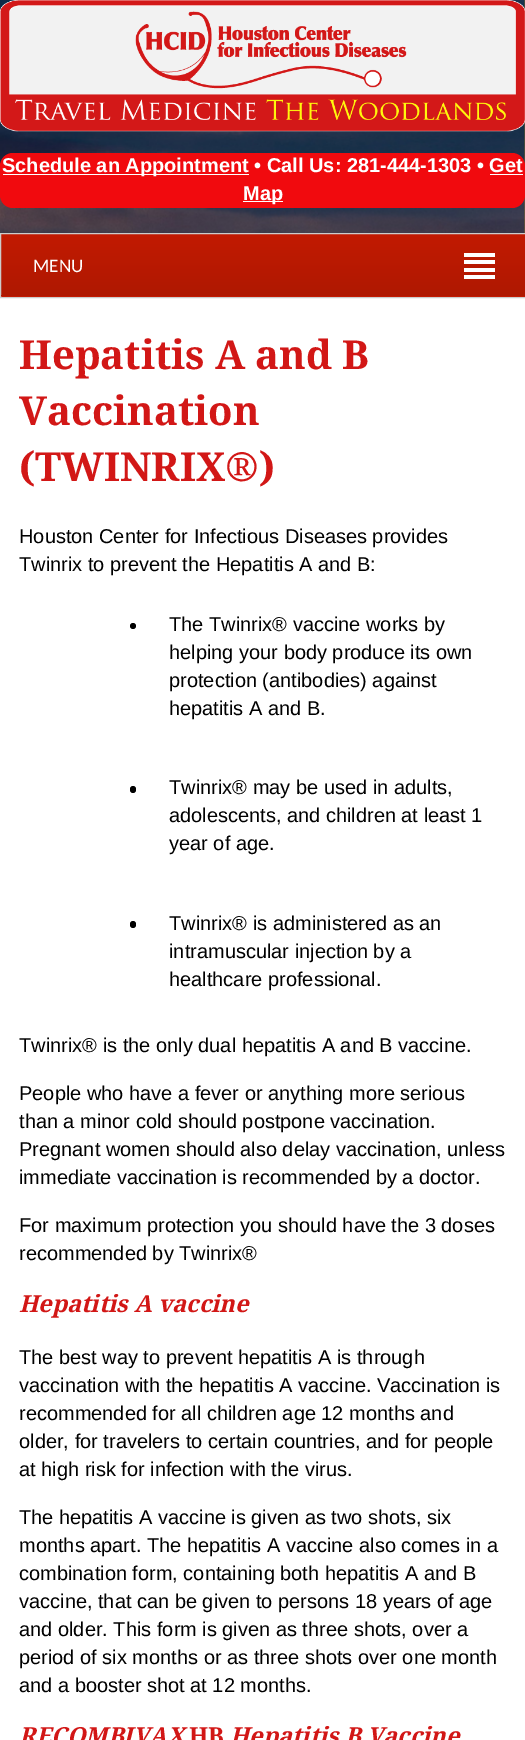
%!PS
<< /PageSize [525 1740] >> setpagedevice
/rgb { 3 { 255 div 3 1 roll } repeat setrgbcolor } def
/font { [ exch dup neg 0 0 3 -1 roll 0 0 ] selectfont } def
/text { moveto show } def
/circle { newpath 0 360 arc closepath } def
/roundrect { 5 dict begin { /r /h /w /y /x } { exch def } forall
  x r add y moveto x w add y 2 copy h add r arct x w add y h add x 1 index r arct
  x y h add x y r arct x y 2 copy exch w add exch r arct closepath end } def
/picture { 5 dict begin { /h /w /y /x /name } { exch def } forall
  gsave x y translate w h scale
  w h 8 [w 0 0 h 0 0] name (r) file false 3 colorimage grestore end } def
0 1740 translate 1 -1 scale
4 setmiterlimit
255 255 255 rgb
0 0 525 1740 rectfill
(img_01.rgb) 0 0 525 233 picture
(img_02.rgb) 0 0 525 132 picture
241 10 14 rgb
0 153 525 55 13 roundrect fill
255 255 255 rgb
3 174 246 1 rectfill
490 174 33 1 rectfill
243 201 40 1 rectfill
gsave 1 234 moveto 524 0 rlineto 0 61 rlineto -524 0 rlineto closepath clip newpath
<< /ShadingType 2 /ColorSpace /DeviceRGB /Coords [264 234 264 296] /Extend [true true] /Function << /FunctionType 2 /Domain [0 1] /C0 [0.761 0.102 0.004] /C1 [0.686 0.094 0.004] /N 1 >> >> shfill grestore
gsave 0 296 moveto 525 0 rlineto 0 1 rlineto -525 0 rlineto closepath clip newpath
<< /ShadingType 2 /ColorSpace /DeviceRGB /Coords [264 296 264 359] /Extend [true true] /Function << /FunctionType 2 /Domain [0 1] /C0 [0.761 0.102 0.004] /C1 [0.686 0.094 0.004] /N 1 >> >> shfill grestore
204 204 204 rgb
0.5 233.5 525 64 rectstroke
175 23 1 rgb
1 295 524 1 rectfill
255 255 255 rgb
464 253 31 4 rectfill
464 260 31 4 rectfill
464 268 31 4 rectfill
464 275 31 4 rectfill
0 0 0 rgb
133 626 3 circle fill
130 786 6 7 3 roundrect fill
130 921 6 7 3 roundrect fill
/LiberationSans-Bold 20 font
255 255 255 rgb
(Schedule an Appointment • Call Us: 281-444-1303 • Get) 2 172 text
(Map) 243 200 text
/Carlito-Regular 19 font
(MENU) 33 272 text
/DroidSerif-Bold 40 font
210 23 22 rgb
(Hepatitis A and B) 19 369 text
(Vaccination) 19 425 text
(\(TWINRIX®\)) 19 481 text
/LiberationSans-Regular 20 font
0 0 0 rgb
(Houston Center for Infectious Diseases provides) 19 543 text
(Twinrix to prevent the Hepatitis A and B:) 19 571 text
(The Twinrix® vaccine works by) 169 631 text
(helping your body produce its own) 169 659 text
(protection \(antibodies\) against) 169 687 text
(hepatitis A and B.) 169 715 text
(Twinrix® may be used in adults,) 169 794 text
(adolescents, and children at least 1) 169 822 text
(year of age.) 169 850 text
(Twinrix® is administered as an) 169 930 text
(intramuscular injection by a) 169 958 text
(healthcare professional.) 169 986 text
(Twinrix® is the only dual hepatitis A and B vaccine.) 19 1052 text
(People who have a fever or anything more serious) 19 1100 text
(than a minor cold should postpone vaccination.) 19 1128 text
(Pregnant women should also delay vaccination, unless) 19 1156 text
(immediate vaccination is recommended by a doctor.) 19 1184 text
(For maximum protection you should have the 3 doses) 19 1232 text
(recommended by Twinrix®) 19 1260 text
/DroidSerif-BoldItalic 23.5 font
210 23 22 rgb
(Hepatitis A vaccine) 19 1312 text
/LiberationSans-Regular 20 font
0 0 0 rgb
(The best way to prevent hepatitis A is through) 19 1364 text
(vaccination with the hepatitis A vaccine. Vaccination is) 19 1392 text
(recommended for all children age 12 months and) 19 1420 text
(older, for travelers to certain countries, and for people) 19 1448 text
(at high risk for infection with the virus.) 19 1476 text
(The hepatitis A vaccine is given as two shots, six) 19 1524 text
(months apart. The hepatitis A vaccine also comes in a) 19 1552 text
(combination form, containing both hepatitis A and B) 19 1580 text
(vaccine, that can be given to persons 18 years of age) 19 1608 text
(and older. This form is given as three shots, over a) 19 1636 text
(period of six months or as three shots over one month) 19 1664 text
(and a booster shot at 12 months.) 19 1692 text
/DroidSerif-BoldItalic 23.5 font
210 23 22 rgb
(RECOMBIVAX) 19 1744 text
/DroidSerif-Bold 23.5 font
(HB) 189 1744 text
/DroidSerif-BoldItalic 23.5 font
(Hepatitis B Vaccine) 230 1744 text
showpage
